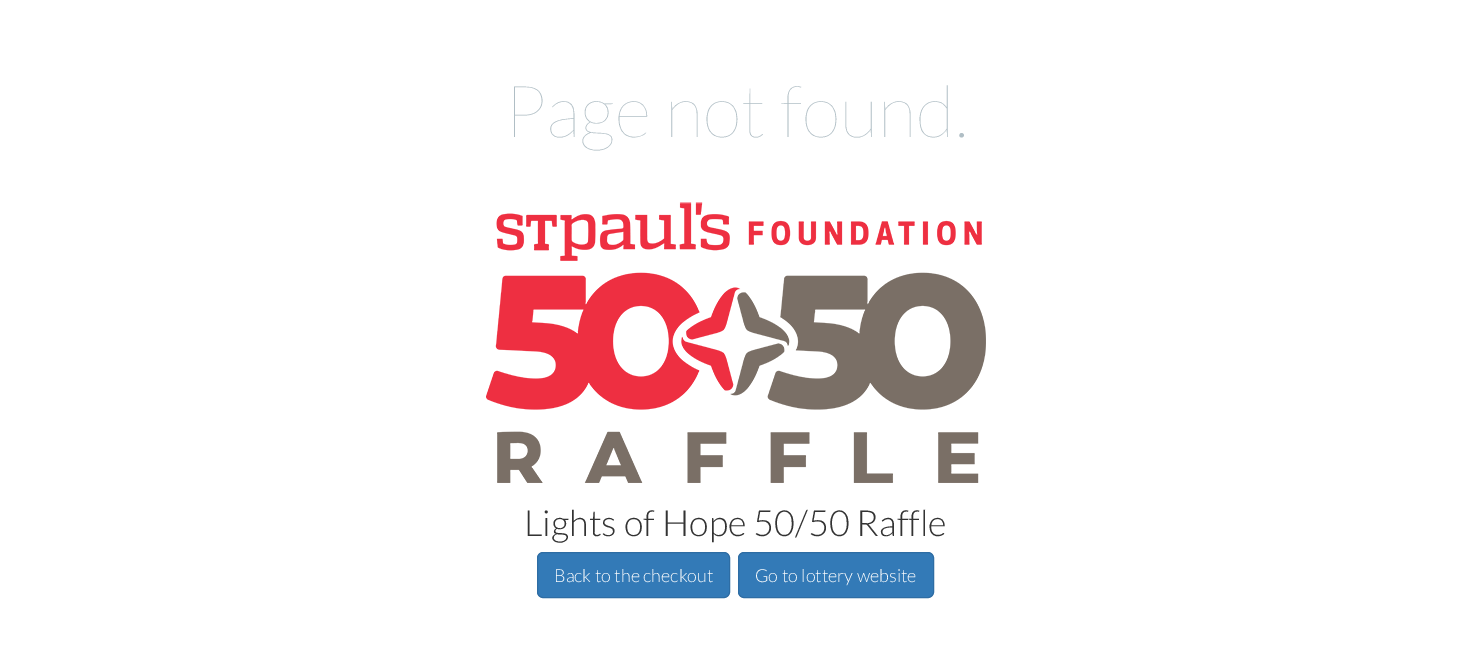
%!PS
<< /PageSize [1471 656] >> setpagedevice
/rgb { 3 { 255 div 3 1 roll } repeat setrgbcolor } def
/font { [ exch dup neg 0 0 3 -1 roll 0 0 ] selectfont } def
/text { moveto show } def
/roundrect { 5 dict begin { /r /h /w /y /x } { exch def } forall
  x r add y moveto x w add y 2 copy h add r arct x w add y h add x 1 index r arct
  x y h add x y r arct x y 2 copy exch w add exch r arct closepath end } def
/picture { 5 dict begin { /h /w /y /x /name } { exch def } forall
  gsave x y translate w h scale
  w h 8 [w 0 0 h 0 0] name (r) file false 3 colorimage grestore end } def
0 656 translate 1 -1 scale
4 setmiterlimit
255 255 255 rgb
0 0 1471 656 rectfill
(img_01.rgb) 486 202 500 281 picture
51 122 183 rgb
537.5 552.5 192 45 5.5 roundrect gsave fill grestore
46 109 164 rgb
stroke
51 122 183 rgb
738.5 552.5 195 45 5.5 roundrect gsave fill grestore
46 109 164 rgb
stroke
/Lato-Thin 72 font
176 190 197 rgb
(Page not found.) 504 137 text
/Lato-Light 36 font
51 51 51 rgb
(Lights of Hope 50/50 Raffle) 524 536 text
/Lato-Light 18 font
255 255 255 rgb
(Back to the checkout) 554 582 text
(Go to lottery website) 755 582 text
showpage
